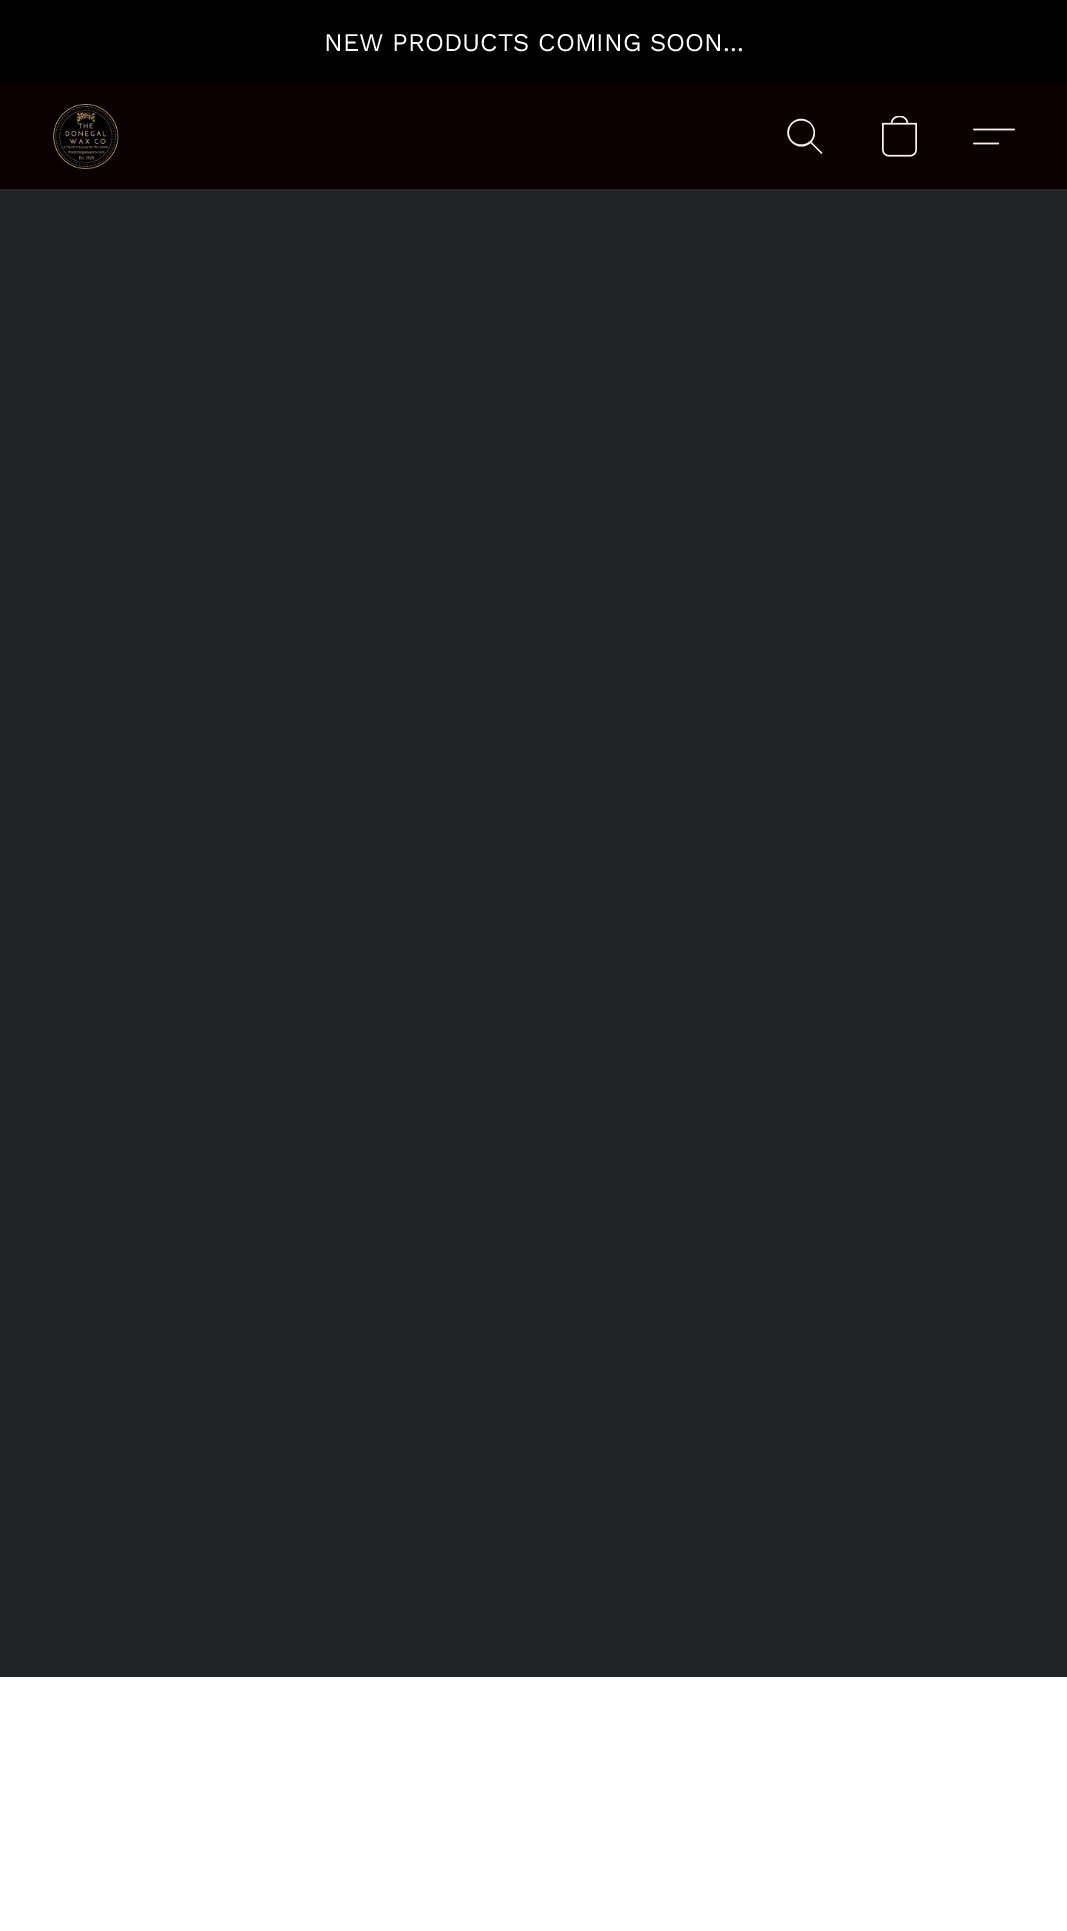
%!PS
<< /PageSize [1067 1931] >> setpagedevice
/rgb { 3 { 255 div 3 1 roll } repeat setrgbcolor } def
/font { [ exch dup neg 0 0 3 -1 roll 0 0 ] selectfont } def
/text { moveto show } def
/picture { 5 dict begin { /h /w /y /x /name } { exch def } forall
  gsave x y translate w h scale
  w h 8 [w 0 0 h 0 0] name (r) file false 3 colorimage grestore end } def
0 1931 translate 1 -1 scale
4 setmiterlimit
255 255 255 rgb
0 0 1067 1931 rectfill
0 0 0 rgb
0 0 1067 84 rectfill
11 0 0 rgb
0 84 1067 105 rectfill
(img_01.rgb) 53 104 66 65 picture
255 238 241 rgb
813.5 132.5 moveto 0 -16 -24.5 -16 -24.5 0 rcurveto 0 16 24.5 16 24.5 0 rcurveto closepath 822.5 153 moveto -1 1 rlineto -11 -11 rlineto -13.5 11.5 -31.5 -7.5 -19 -20 rcurveto 12.5 -12.5 31.5 5.5 20 19 rcurveto closepath eofill
(img_02.rgb) 882 116 35 41 picture
(img_03.rgb) 973 128 42 17 picture
33 36 39 rgb
0 189 1067 1488 rectfill
/WorkSans-Regular 25.5 font
255 255 255 rgb
(NEW PRODUCTS COMING SOON...) 324 51 text
showpage
